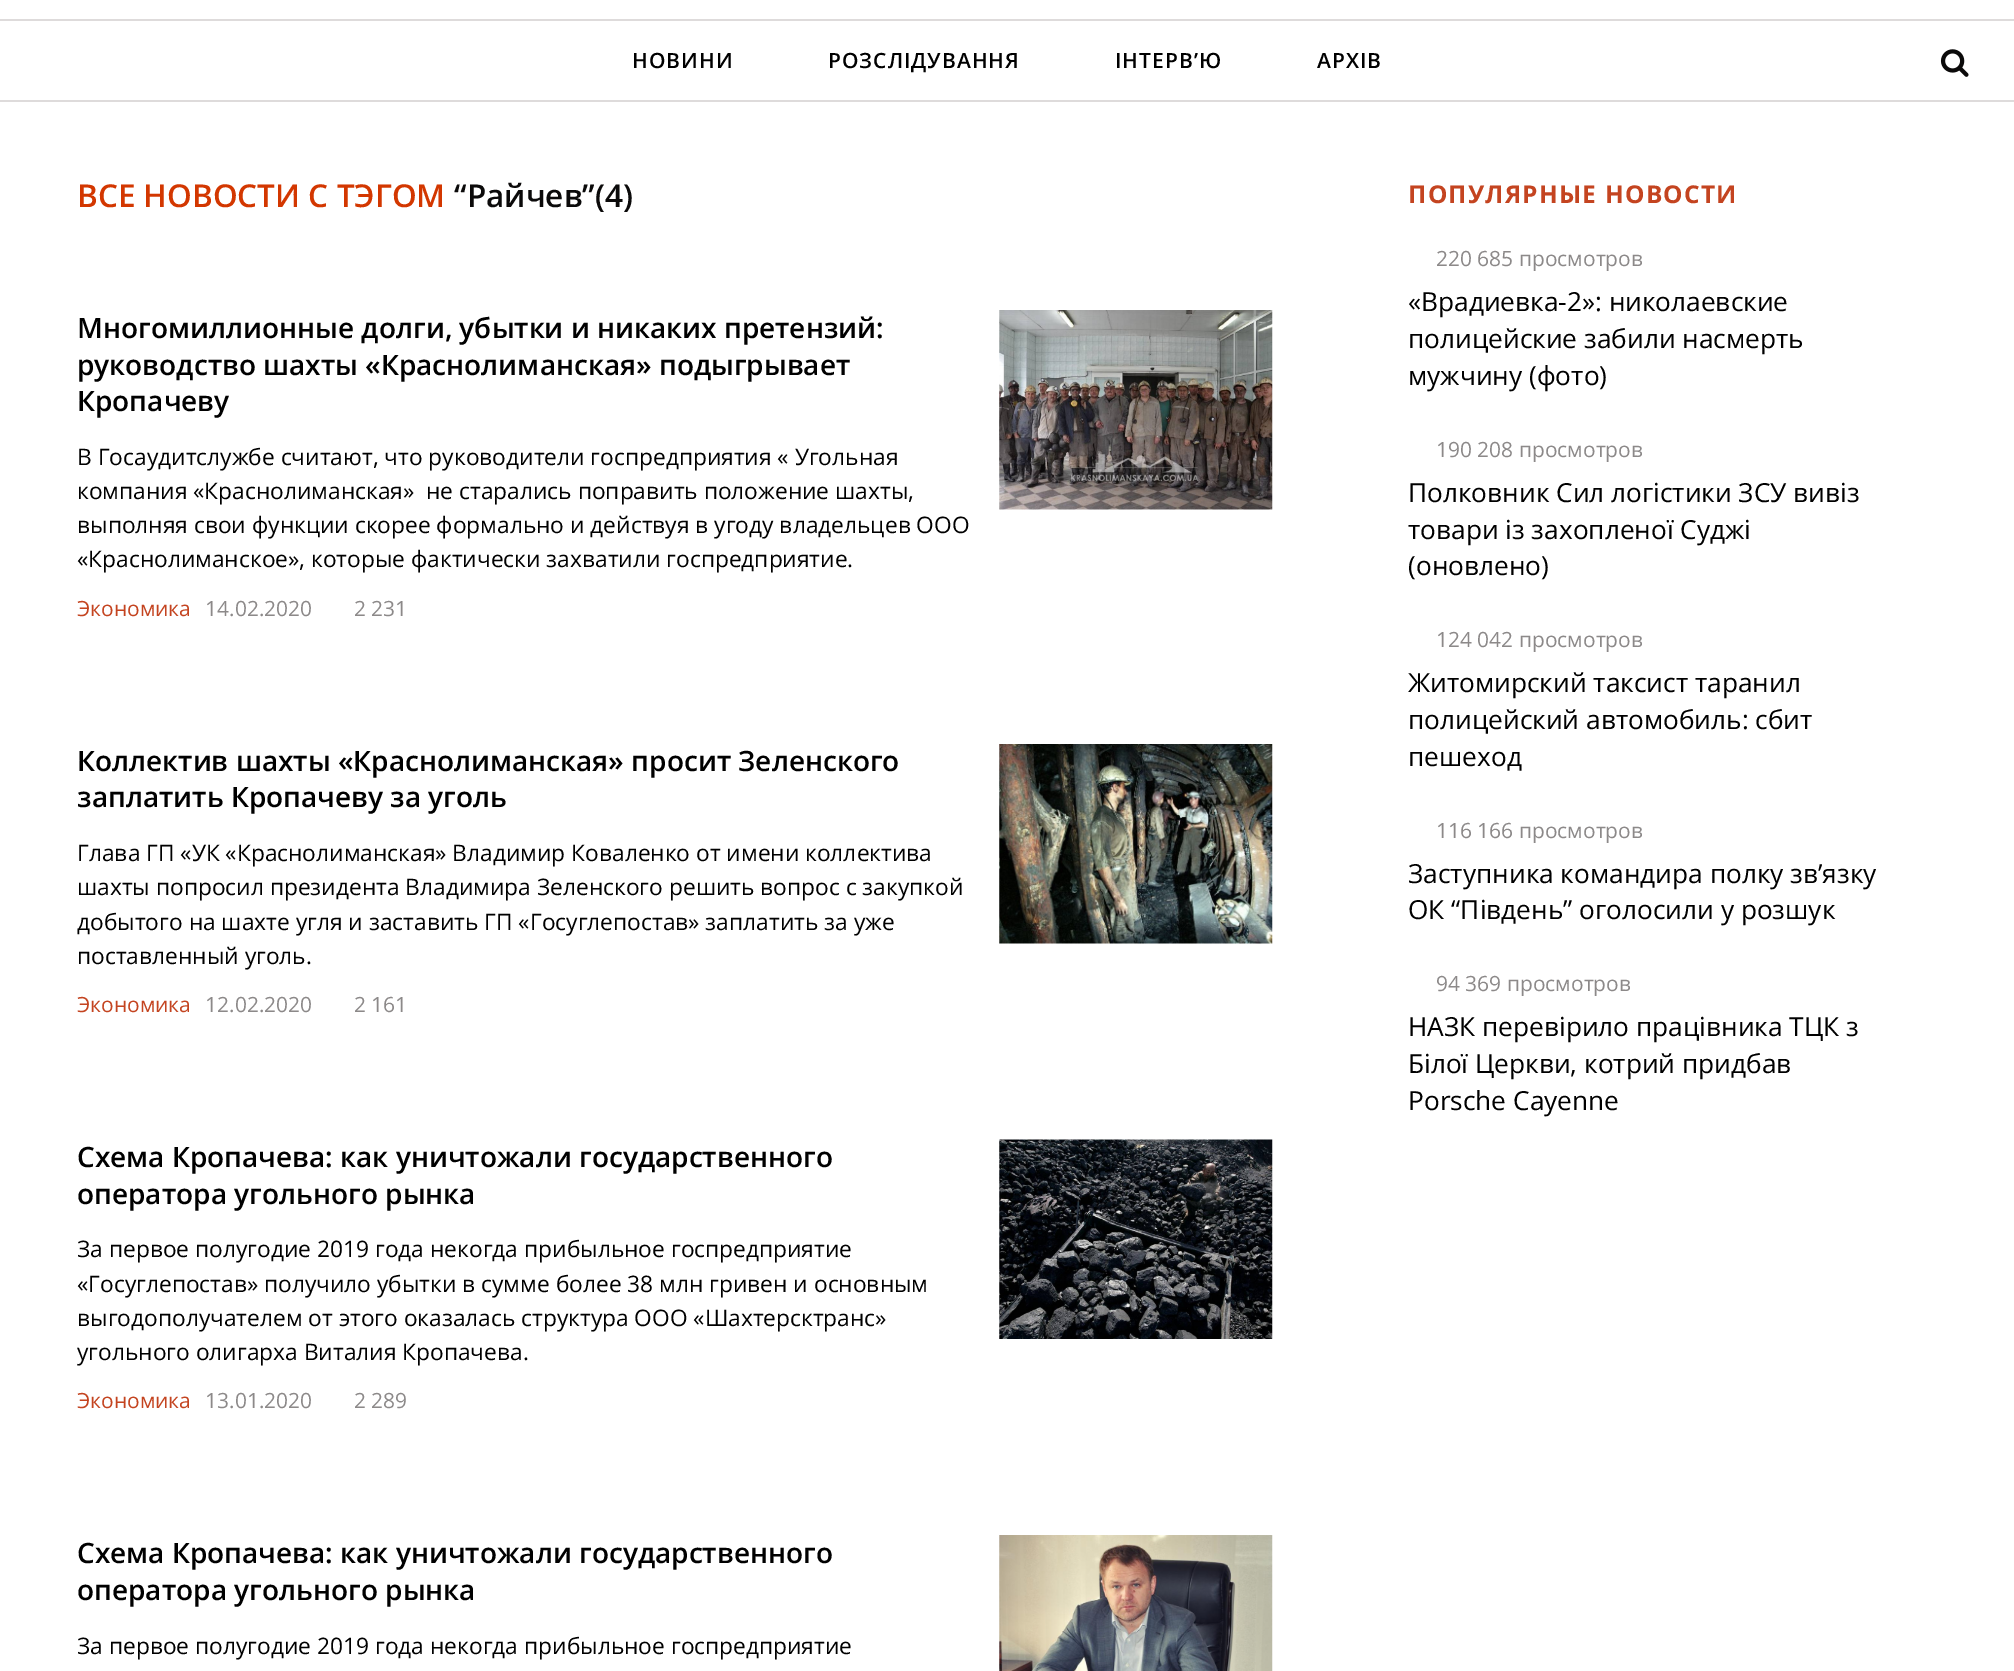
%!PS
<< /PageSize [2014 1671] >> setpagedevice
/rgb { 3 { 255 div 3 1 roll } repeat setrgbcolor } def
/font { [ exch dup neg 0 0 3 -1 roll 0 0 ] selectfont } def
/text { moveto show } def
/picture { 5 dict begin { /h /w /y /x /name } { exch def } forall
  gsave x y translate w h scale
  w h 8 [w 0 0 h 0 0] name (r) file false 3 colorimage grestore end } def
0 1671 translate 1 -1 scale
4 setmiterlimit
255 255 255 rgb
0 0 2014 1671 rectfill
222 219 219 rgb
0 100 2014 2 rectfill
0 19 2014 2 rectfill
(img_01.rgb) 1940 49 29 28 picture
(img_02.rgb) 999 310 274 200 picture
(img_03.rgb) 999 744 274 200 picture
(img_04.rgb) 999 1139 274 200 picture
(img_05.rgb) 999 1535 274 136 picture
/OpenSans-SemiBold 21 font
0 0 0 rgb
632 68 moveto 1 0 (НОВИНИ) ashow
828 68 moveto 1 0 (РОЗСЛІДУВАННЯ) ashow
1115 68 moveto 1 0 (ІНТЕРВ’Ю) ashow
1317 68 moveto 1 0 (АРХІВ) ashow
/OpenSans-SemiBold 31.5 font
211 55 0 rgb
(ВСЕ НОВОСТИ С ТЭГОМ) 77 207 text
11 10 10 rgb
(“Райчев”\(4\)) 454 207 text
/OpenSans-SemiBold 28 font
0 0 0 rgb
(Многомиллионные долги, убытки и никаких претензий:) 77 338 text
(руководство шахты «Краснолиманская» подыгрывает) 77 375 text
(Кропачеву) 77 411 text
/OpenSans-Regular 22.75 font
(В Госаудитслужбе считают, что руководители госпредприятия « Угольная) 77 465 text
(компания «Краснолиманская»  не старались поправить положение шахты,) 77 499 text
(выполняя свои функции скорее формально и действуя в угоду владельцев ООО) 77 533 text
(«Краснолиманское», которые фактически захватили госпредприятие.) 77 567 text
/OpenSans-Regular 21 font
196 68 32 rgb
(Экономика) 77 616 text
140 137 137 rgb
(14.02.2020) 205 616 text
(2 231) 354 616 text
/OpenSans-SemiBold 28 font
0 0 0 rgb
(Коллектив шахты «Краснолиманская» просит Зеленского) 77 771 text
(заплатить Кропачеву за уголь) 77 807 text
/OpenSans-Regular 22.75 font
(Глава ГП «УК «Краснолиманская» Владимир Коваленко от имени коллектива) 77 861 text
(шахты попросил президента Владимира Зеленского решить вопрос с закупкой) 77 895 text
(добытого на шахте угля и заставить ГП «Госуглепостав» заплатить за уже) 77 930 text
(поставленный уголь.) 77 964 text
/OpenSans-Regular 21 font
196 68 32 rgb
(Экономика) 77 1012 text
140 137 137 rgb
(12.02.2020) 205 1012 text
(2 161) 354 1012 text
/OpenSans-SemiBold 28 font
0 0 0 rgb
(Схема Кропачева: как уничтожали государственного) 77 1167 text
(оператора угольного рынка) 77 1204 text
/OpenSans-Regular 22.75 font
(За первое полугодие 2019 года некогда прибыльное госпредприятие) 77 1257 text
(«Госуглепостав» получило убытки в сумме более 38 млн гривен и основным) 77 1292 text
(выгодополучателем от этого оказалась структура ООО «Шахтерсктранс») 77 1326 text
(угольного олигарха Виталия Кропачева.) 77 1360 text
/OpenSans-Regular 21 font
196 68 32 rgb
(Экономика) 77 1408 text
140 137 137 rgb
(13.01.2020) 205 1408 text
(2 289) 354 1408 text
/OpenSans-SemiBold 28 font
0 0 0 rgb
(Схема Кропачева: как уничтожали государственного) 77 1563 text
(оператора угольного рынка) 77 1600 text
/OpenSans-Regular 22.75 font
(За первое полугодие 2019 года некогда прибыльное госпредприятие) 77 1654 text
/OpenSans-Bold 24.5 font
196 68 32 rgb
1408 203 moveto 1.25 0 (ПОПУЛЯРНЫЕ НОВОСТИ) ashow
/OpenSans-Regular 21 font
140 137 137 rgb
(220 685 просмотров) 1436 266 text
/OpenSans-Regular 26.25 font
0 0 0 rgb
(«Врадиевка-2»: николаевские) 1408 311 text
(полицейские забили насмерть) 1408 348 text
(мужчину \(фото\)) 1408 385 text
/OpenSans-Regular 21 font
140 137 137 rgb
(190 208 просмотров) 1436 457 text
/OpenSans-Regular 26.25 font
0 0 0 rgb
(Полковник Сил логістики ЗСУ вивіз) 1408 502 text
(товари із захопленої Суджі) 1408 539 text
(\(оновлено\)) 1408 575 text
/OpenSans-Regular 21 font
140 137 137 rgb
(124 042 просмотров) 1436 647 text
/OpenSans-Regular 26.25 font
0 0 0 rgb
(Житомирский таксист таранил) 1408 692 text
(полицейский автомобиль: сбит) 1408 729 text
(пешеход) 1408 766 text
/OpenSans-Regular 21 font
140 137 137 rgb
(116 166 просмотров) 1436 838 text
/OpenSans-Regular 26.25 font
0 0 0 rgb
(Заступника командира полку зв’язку) 1408 883 text
(ОК “Південь” оголосили у розшук) 1408 919 text
/OpenSans-Regular 21 font
140 137 137 rgb
(94 369 просмотров) 1436 991 text
/OpenSans-Regular 26.25 font
0 0 0 rgb
(НАЗК перевірило працівника ТЦК з) 1408 1036 text
(Білої Церкви, котрий придбав) 1408 1073 text
(Porsche Cayenne) 1408 1110 text
showpage
